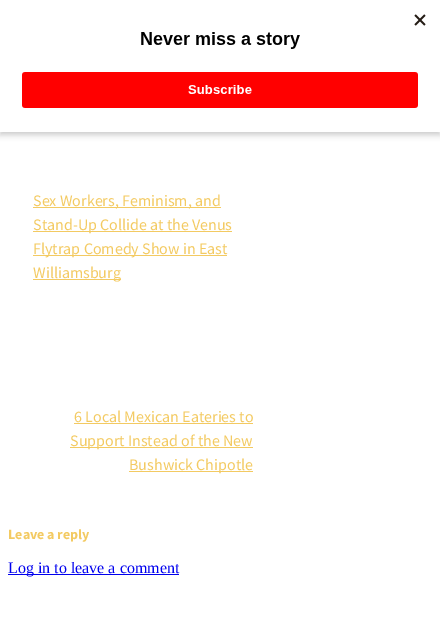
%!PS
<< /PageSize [440 635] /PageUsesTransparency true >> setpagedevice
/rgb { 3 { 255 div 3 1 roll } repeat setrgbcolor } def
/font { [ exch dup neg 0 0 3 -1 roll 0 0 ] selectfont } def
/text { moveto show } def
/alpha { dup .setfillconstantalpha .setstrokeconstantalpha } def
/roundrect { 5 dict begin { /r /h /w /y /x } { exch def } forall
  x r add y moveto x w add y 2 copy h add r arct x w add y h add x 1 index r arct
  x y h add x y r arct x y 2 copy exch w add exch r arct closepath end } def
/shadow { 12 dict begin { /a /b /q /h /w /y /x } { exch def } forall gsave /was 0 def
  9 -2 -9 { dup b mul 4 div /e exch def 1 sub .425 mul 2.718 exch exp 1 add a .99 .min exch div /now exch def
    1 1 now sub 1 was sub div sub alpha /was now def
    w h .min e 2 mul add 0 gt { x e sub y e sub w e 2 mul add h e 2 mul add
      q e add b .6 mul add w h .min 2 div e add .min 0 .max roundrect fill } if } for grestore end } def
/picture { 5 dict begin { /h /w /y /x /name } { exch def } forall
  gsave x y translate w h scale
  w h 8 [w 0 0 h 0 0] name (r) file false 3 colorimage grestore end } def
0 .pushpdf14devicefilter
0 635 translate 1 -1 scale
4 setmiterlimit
255 255 255 rgb
0 0 440 635 rectfill
0 0 0 rgb
0 3 440 132 0 3 0.2 shadow
255 255 255 rgb
0 0 440 132 rectfill
(img_01.rgb) 22 14 404 94 picture
243 202 98 rgb
33 207 188 1 rectfill
33 231 199 1 rectfill
33 255 194 1 rectfill
33 279 88 1 rectfill
74 423 179 1 rectfill
70 447 183 1 rectfill
129 471 124 1 rectfill
0 0 238 rgb
8 574 171 1 rectfill
/SourceSansPro-Regular 16 font
243 202 98 rgb
(Sex Workers, Feminism, and) 33 206 text
(Stand-Up Collide at the Venus) 33 230 text
(Flytrap Comedy Show in East) 33 254 text
(Williamsburg) 33 278 text
(6 Local Mexican Eateries to) 74 422 text
(Support Instead of the New) 70 446 text
(Bushwick Chipotle) 129 470 text
/SourceSansPro-Bold 14 font
(Leave a reply) 8 539 text
/LiberationSerif-Regular 16 font
0 0 238 rgb
(Log in to leave a comment) 8 573 text
.poppdf14devicefilter showpage
